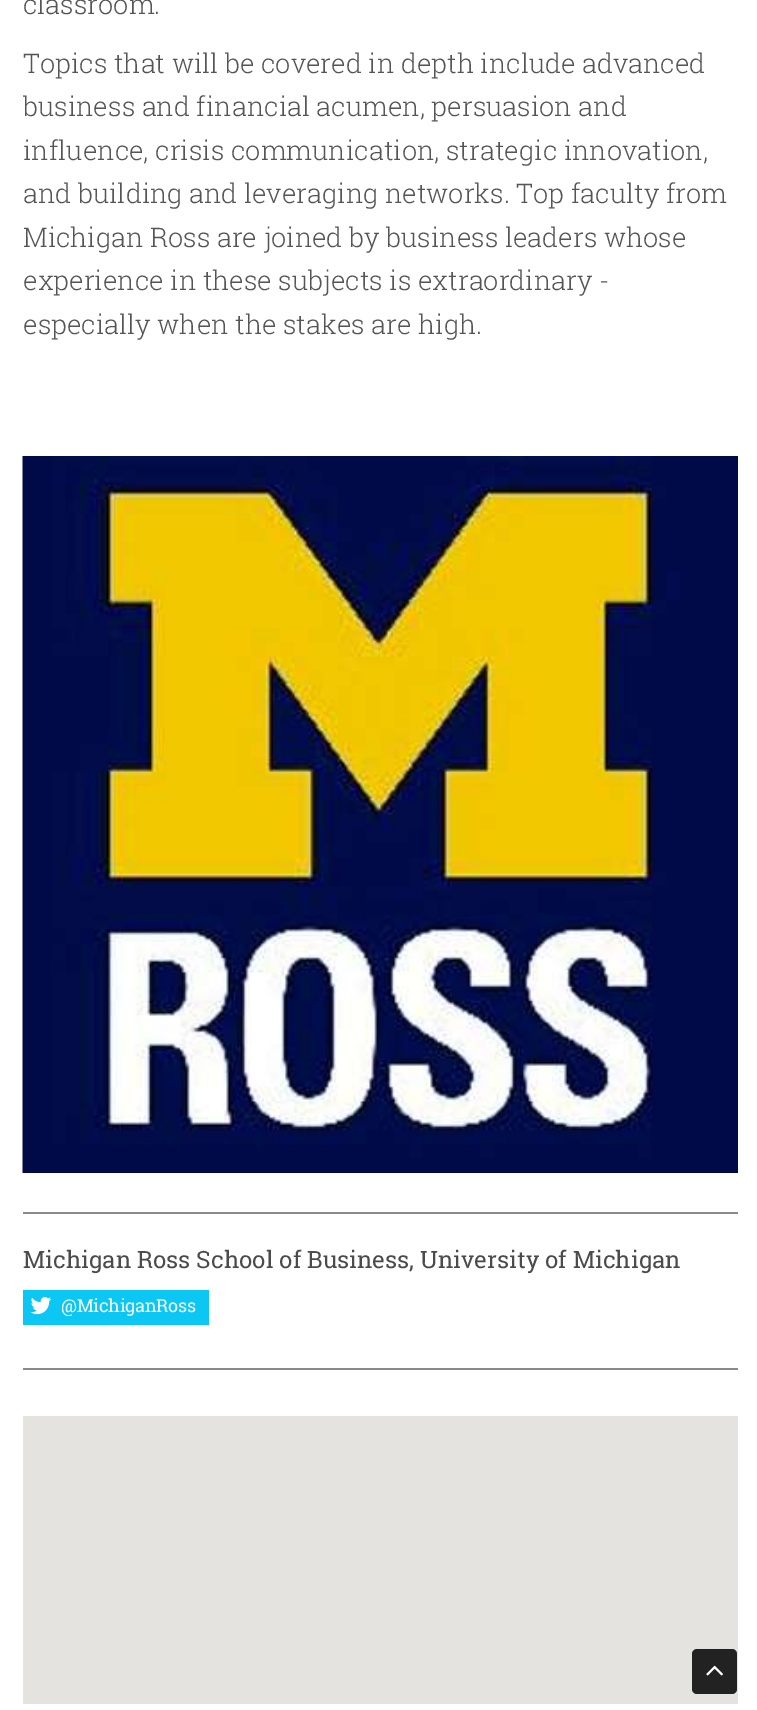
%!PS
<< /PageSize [757 1710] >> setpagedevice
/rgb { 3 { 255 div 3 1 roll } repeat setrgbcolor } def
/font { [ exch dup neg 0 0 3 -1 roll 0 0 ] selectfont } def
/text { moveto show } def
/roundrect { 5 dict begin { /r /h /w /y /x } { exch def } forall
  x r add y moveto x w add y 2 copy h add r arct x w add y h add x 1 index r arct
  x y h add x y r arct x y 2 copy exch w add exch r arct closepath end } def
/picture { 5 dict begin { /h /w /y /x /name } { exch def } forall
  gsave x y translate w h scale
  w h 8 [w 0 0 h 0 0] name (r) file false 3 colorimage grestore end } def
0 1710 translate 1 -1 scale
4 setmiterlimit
255 255 255 rgb
0 0 757 1710 rectfill
(img_01.rgb) 22 456 716 717 picture
138 138 138 rgb
23 1212 715 2 rectfill
12 198 244 rgb
23 1290 186 35 rectfill
(img_02.rgb) 30 1297 22 18 picture
138 138 138 rgb
23 1368 715 2 rectfill
229 227 223 rgb
23 1416 715 288 rectfill
34 34 34 rgb
692 1649 45 45 5 roundrect fill
(img_03.rgb) 706 1665 17 11 picture
/RobotoSlab-Light 27 font
85 85 85 rgb
(classroom.) 23 14 text
(Topics that will be covered in depth include advanced) 23 73 text
(business and financial acumen, persuasion and) 23 116 text
(influence, crisis communication, strategic innovation,) 23 160 text
(and building and leveraging networks. Top faculty from) 23 203 text
(Michigan Ross are joined by business leaders whose) 23 247 text
(experience in these subjects is extraordinary -) 23 290 text
(especially when the stakes are high.) 23 334 text
/RobotoSlab-Regular 23.8 font
75 75 76 rgb
(Michigan Ross School of Business, University of Michigan) 23 1268 text
/RobotoSlab-Regular 18 font
255 255 255 rgb
61 1312 moveto -0.25 0 (@MichiganRoss) ashow
showpage
